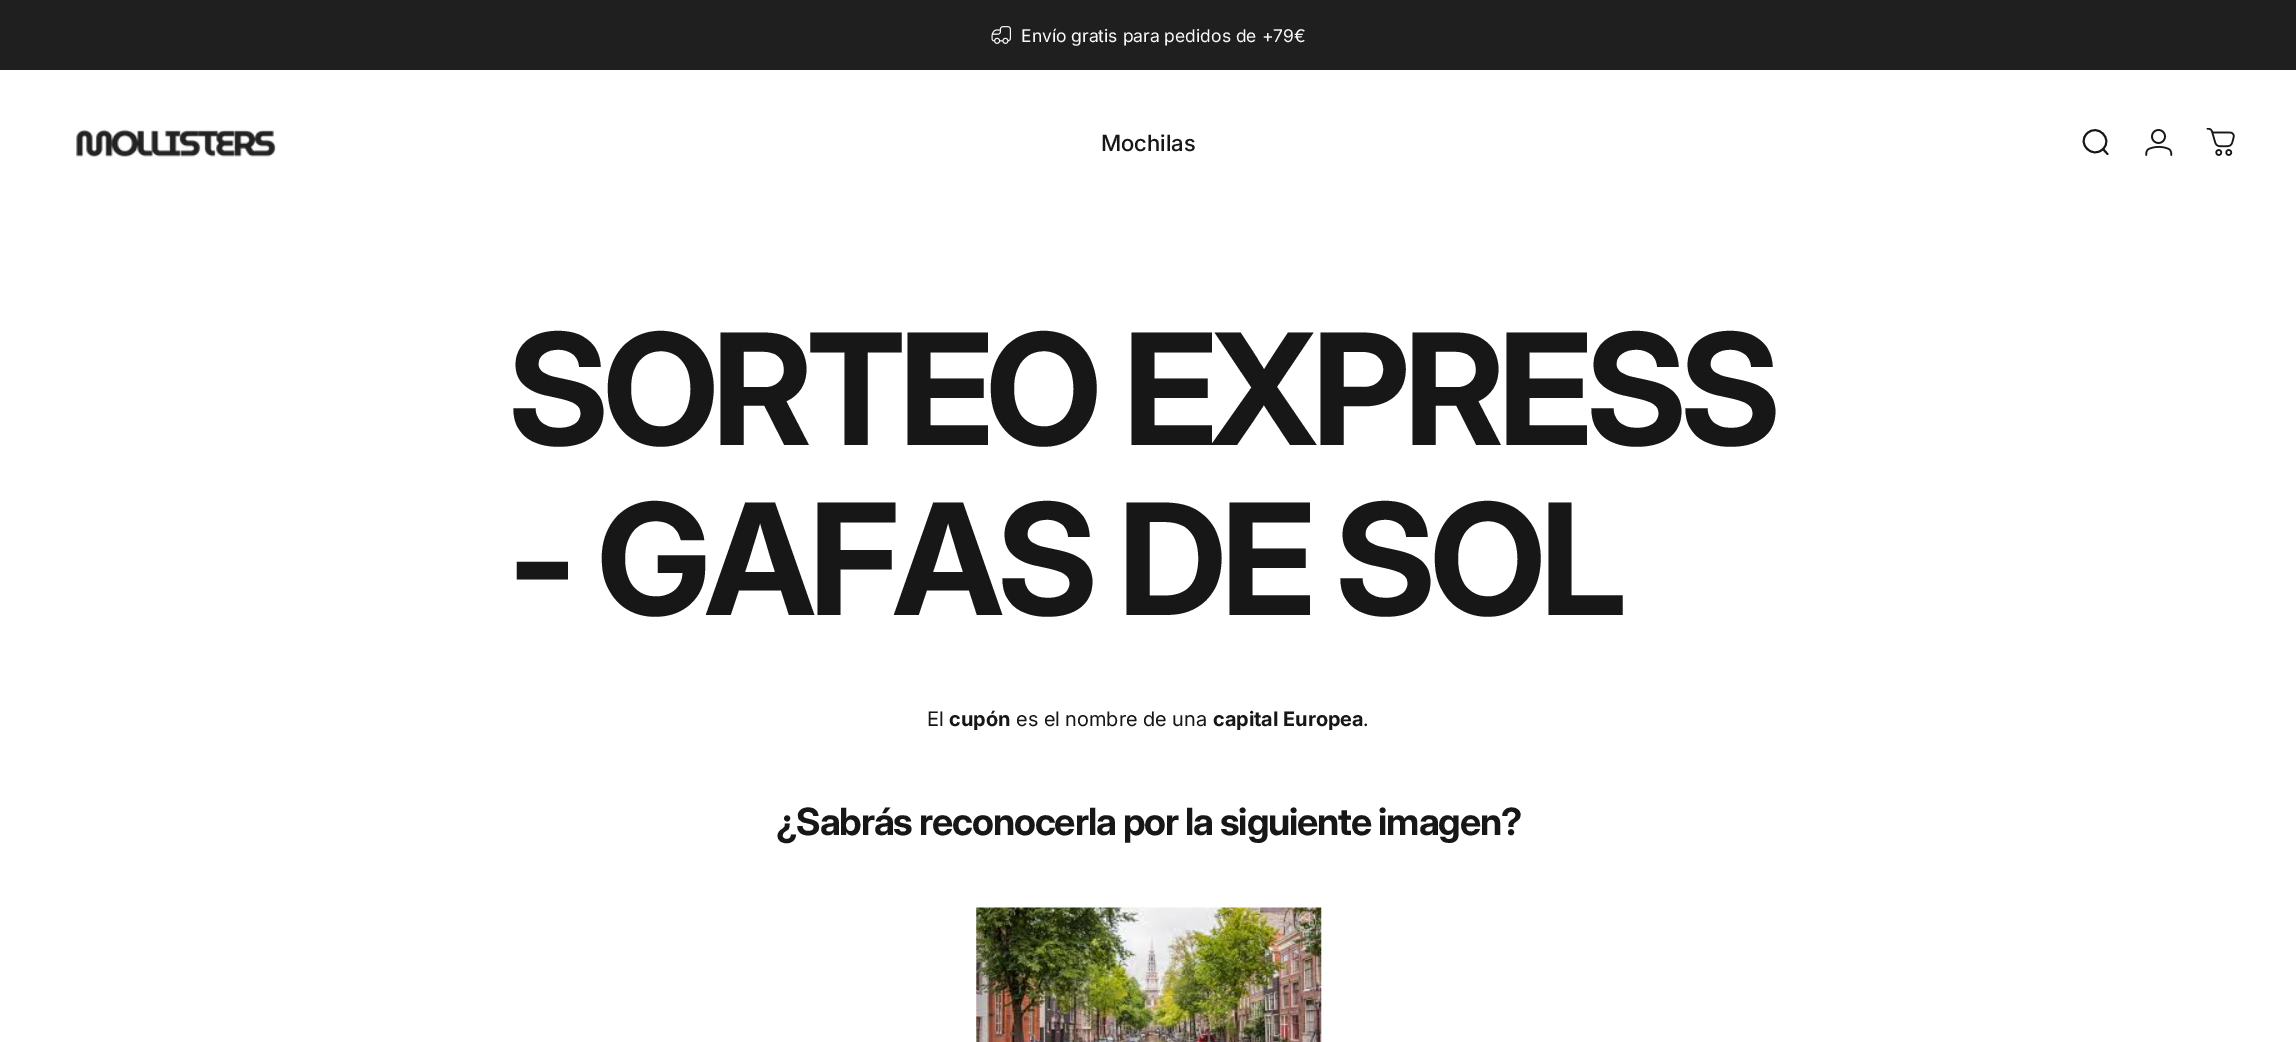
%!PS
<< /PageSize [2296 1042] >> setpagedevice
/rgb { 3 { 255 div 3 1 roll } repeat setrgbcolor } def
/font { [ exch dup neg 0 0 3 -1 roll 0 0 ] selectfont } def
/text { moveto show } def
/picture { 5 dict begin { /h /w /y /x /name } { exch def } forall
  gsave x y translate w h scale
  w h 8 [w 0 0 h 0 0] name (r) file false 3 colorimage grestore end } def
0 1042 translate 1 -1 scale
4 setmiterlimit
255 255 255 rgb
0 0 2296 1042 rectfill
31 31 31 rgb
0 0 2296 70 rectfill
(img_01.rgb) 991 26 20 18 picture
(img_02.rgb) 76 129 200 28 picture
23 23 23 rgb
1.9 setlinewidth
1 setlinecap
2107.5 154 moveto -4.5 -5 rlineto 2103 149 moveto 10.5 -10 -5.5 -26 -16 -15.5 rcurveto -10.5 10 5.5 26 16 15.5 rcurveto closepath stroke
(img_03.rgb) 2145 129 28 27 picture
(img_04.rgb) 2206 128 29 28 picture
(img_05.rgb) 976 907 346 135 picture
/Inter-Regular 17.5 font
250 250 250 rgb
(Envío gratis para pedidos de +79€) 1021 42 text
/Inter-Medium 22.25 font
23 23 23 rgb
(Mochilas) 1101 151 text
/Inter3-Bold 154.75 font
508 445 moveto -6.25 0 (SORTEO EXPRESS) ashow
508 615 moveto -6.25 0 (- GAFAS DE SOL) ashow
/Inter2-Regular 20 font
(El) 927 726 text
/Inter-Bold 20 font
(cupón) 949 726 text
/Inter2-Regular 20 font
(es el nombre de una) 1016 726 text
/Inter-Bold 20 font
(capital Europea) 1213 726 text
/Inter2-Regular 20 font
(.) 1363 726 text
/Inter2-Bold 37.5 font
776 835 moveto -1.1 0 (¿Sabrás reconocerla por la siguiente imagen?) ashow
showpage
